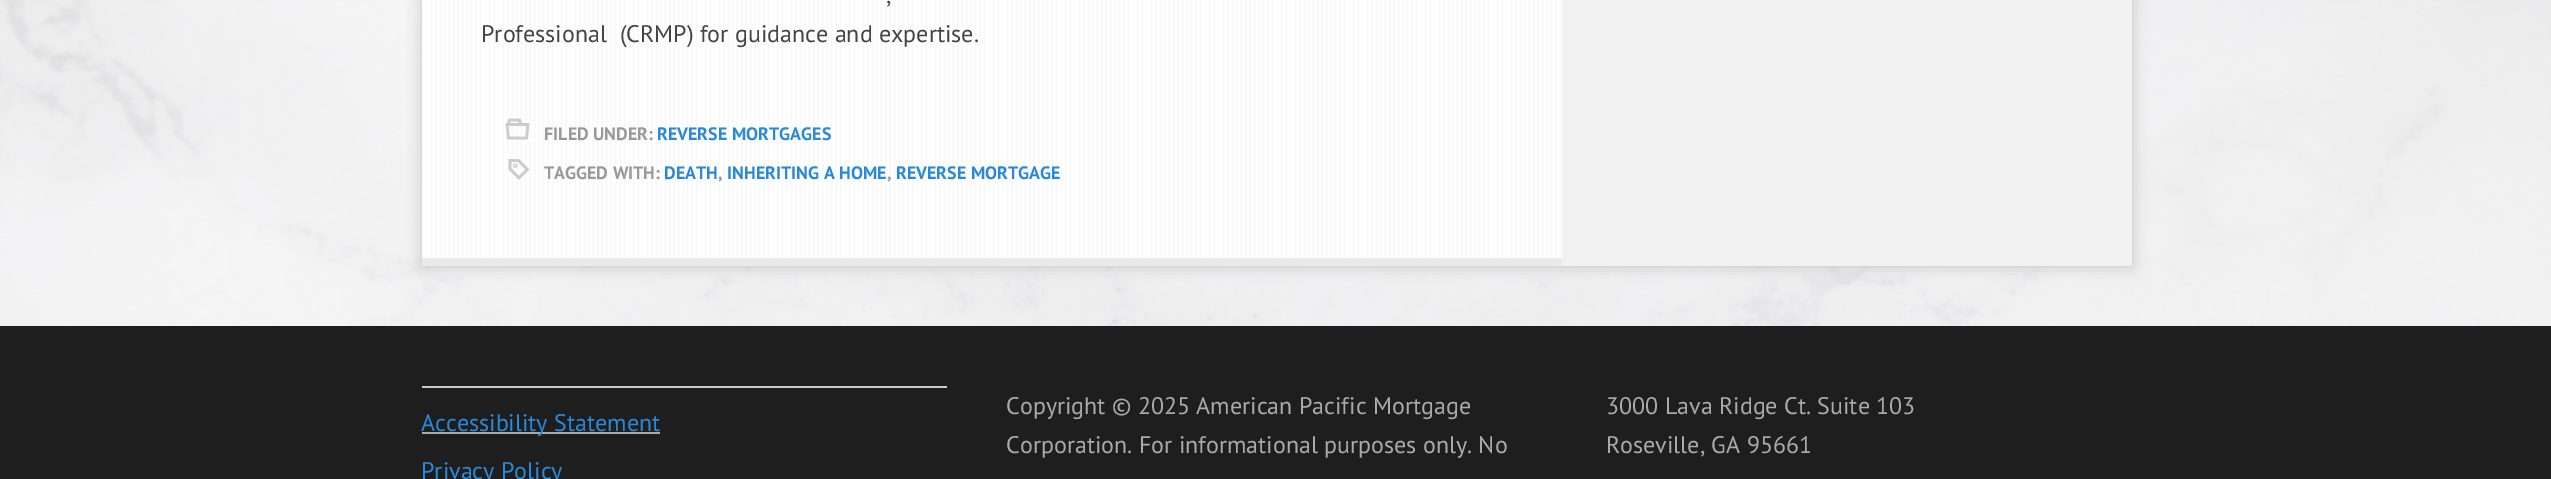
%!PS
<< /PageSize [2551 479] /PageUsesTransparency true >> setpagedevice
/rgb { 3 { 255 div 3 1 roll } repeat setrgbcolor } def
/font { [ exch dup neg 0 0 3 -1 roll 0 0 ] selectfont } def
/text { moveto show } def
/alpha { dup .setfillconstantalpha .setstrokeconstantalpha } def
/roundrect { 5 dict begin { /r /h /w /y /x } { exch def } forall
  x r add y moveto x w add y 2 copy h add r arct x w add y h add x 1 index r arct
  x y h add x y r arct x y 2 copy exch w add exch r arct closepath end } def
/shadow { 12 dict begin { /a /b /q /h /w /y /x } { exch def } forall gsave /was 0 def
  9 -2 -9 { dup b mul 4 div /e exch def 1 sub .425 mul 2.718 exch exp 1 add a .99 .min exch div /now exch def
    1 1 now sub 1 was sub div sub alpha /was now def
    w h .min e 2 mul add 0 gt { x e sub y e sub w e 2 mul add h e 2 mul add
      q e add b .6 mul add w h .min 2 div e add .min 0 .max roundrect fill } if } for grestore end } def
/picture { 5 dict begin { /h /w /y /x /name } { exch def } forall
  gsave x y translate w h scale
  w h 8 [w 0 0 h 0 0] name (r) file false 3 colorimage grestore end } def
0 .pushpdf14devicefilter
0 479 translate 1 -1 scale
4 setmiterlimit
255 255 255 rgb
0 0 2551 479 rectfill
(img_01.rgb) 0 0 2551 326 picture
195 195 195 rgb
422 -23 1710 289 0 7.5 1 shadow
241 241 241 rgb
1562 0 570 266 rectfill
255 255 255 rgb
422 0 1140 258 rectfill
(img_02.rgb) 422 0 1139 258 picture
234 234 234 rgb
422 258 1140 8 rectfill
(img_03.rgb) 505 118 25 22 picture
(img_04.rgb) 508 159 22 21 picture
30 30 30 rgb
0 326 2551 153 rectfill
204 204 204 rgb
422 386 525 2 rectfill
170 170 170 rgb
422 432 238 2 rectfill
/PTSans-Regular 24 font
68 68 68 rgb
(,) 886 3 text
(Professional  \(CRMP\) for guidance and expertise.) 481 42 text
/PTSans-Bold 18 font
153 153 153 rgb
(FILED UNDER:) 544 140 text
41 137 216 rgb
(REVERSE MORTGAGES) 657 140 text
153 153 153 rgb
(TAGGED WITH:) 544 179 text
41 137 216 rgb
(DEATH) 664 179 text
153 153 153 rgb
(,) 718 179 text
41 137 216 rgb
(INHERITING A HOME) 727 179 text
153 153 153 rgb
(,) 887 179 text
41 137 216 rgb
(REVERSE MORTGAGE) 896 179 text
/PTSans-Regular 24 font
(Accessibility Statement) 421 431 text
(Privacy Policy) 421 479 text
170 170 170 rgb
(Copyright © 2025 American Pacific Mortgage) 1006 414 text
(Corporation. For informational purposes only. No) 1006 453 text
(3000 Lava Ridge Ct. Suite 103) 1606 414 text
(Roseville, GA 95661) 1606 453 text
.poppdf14devicefilter showpage
